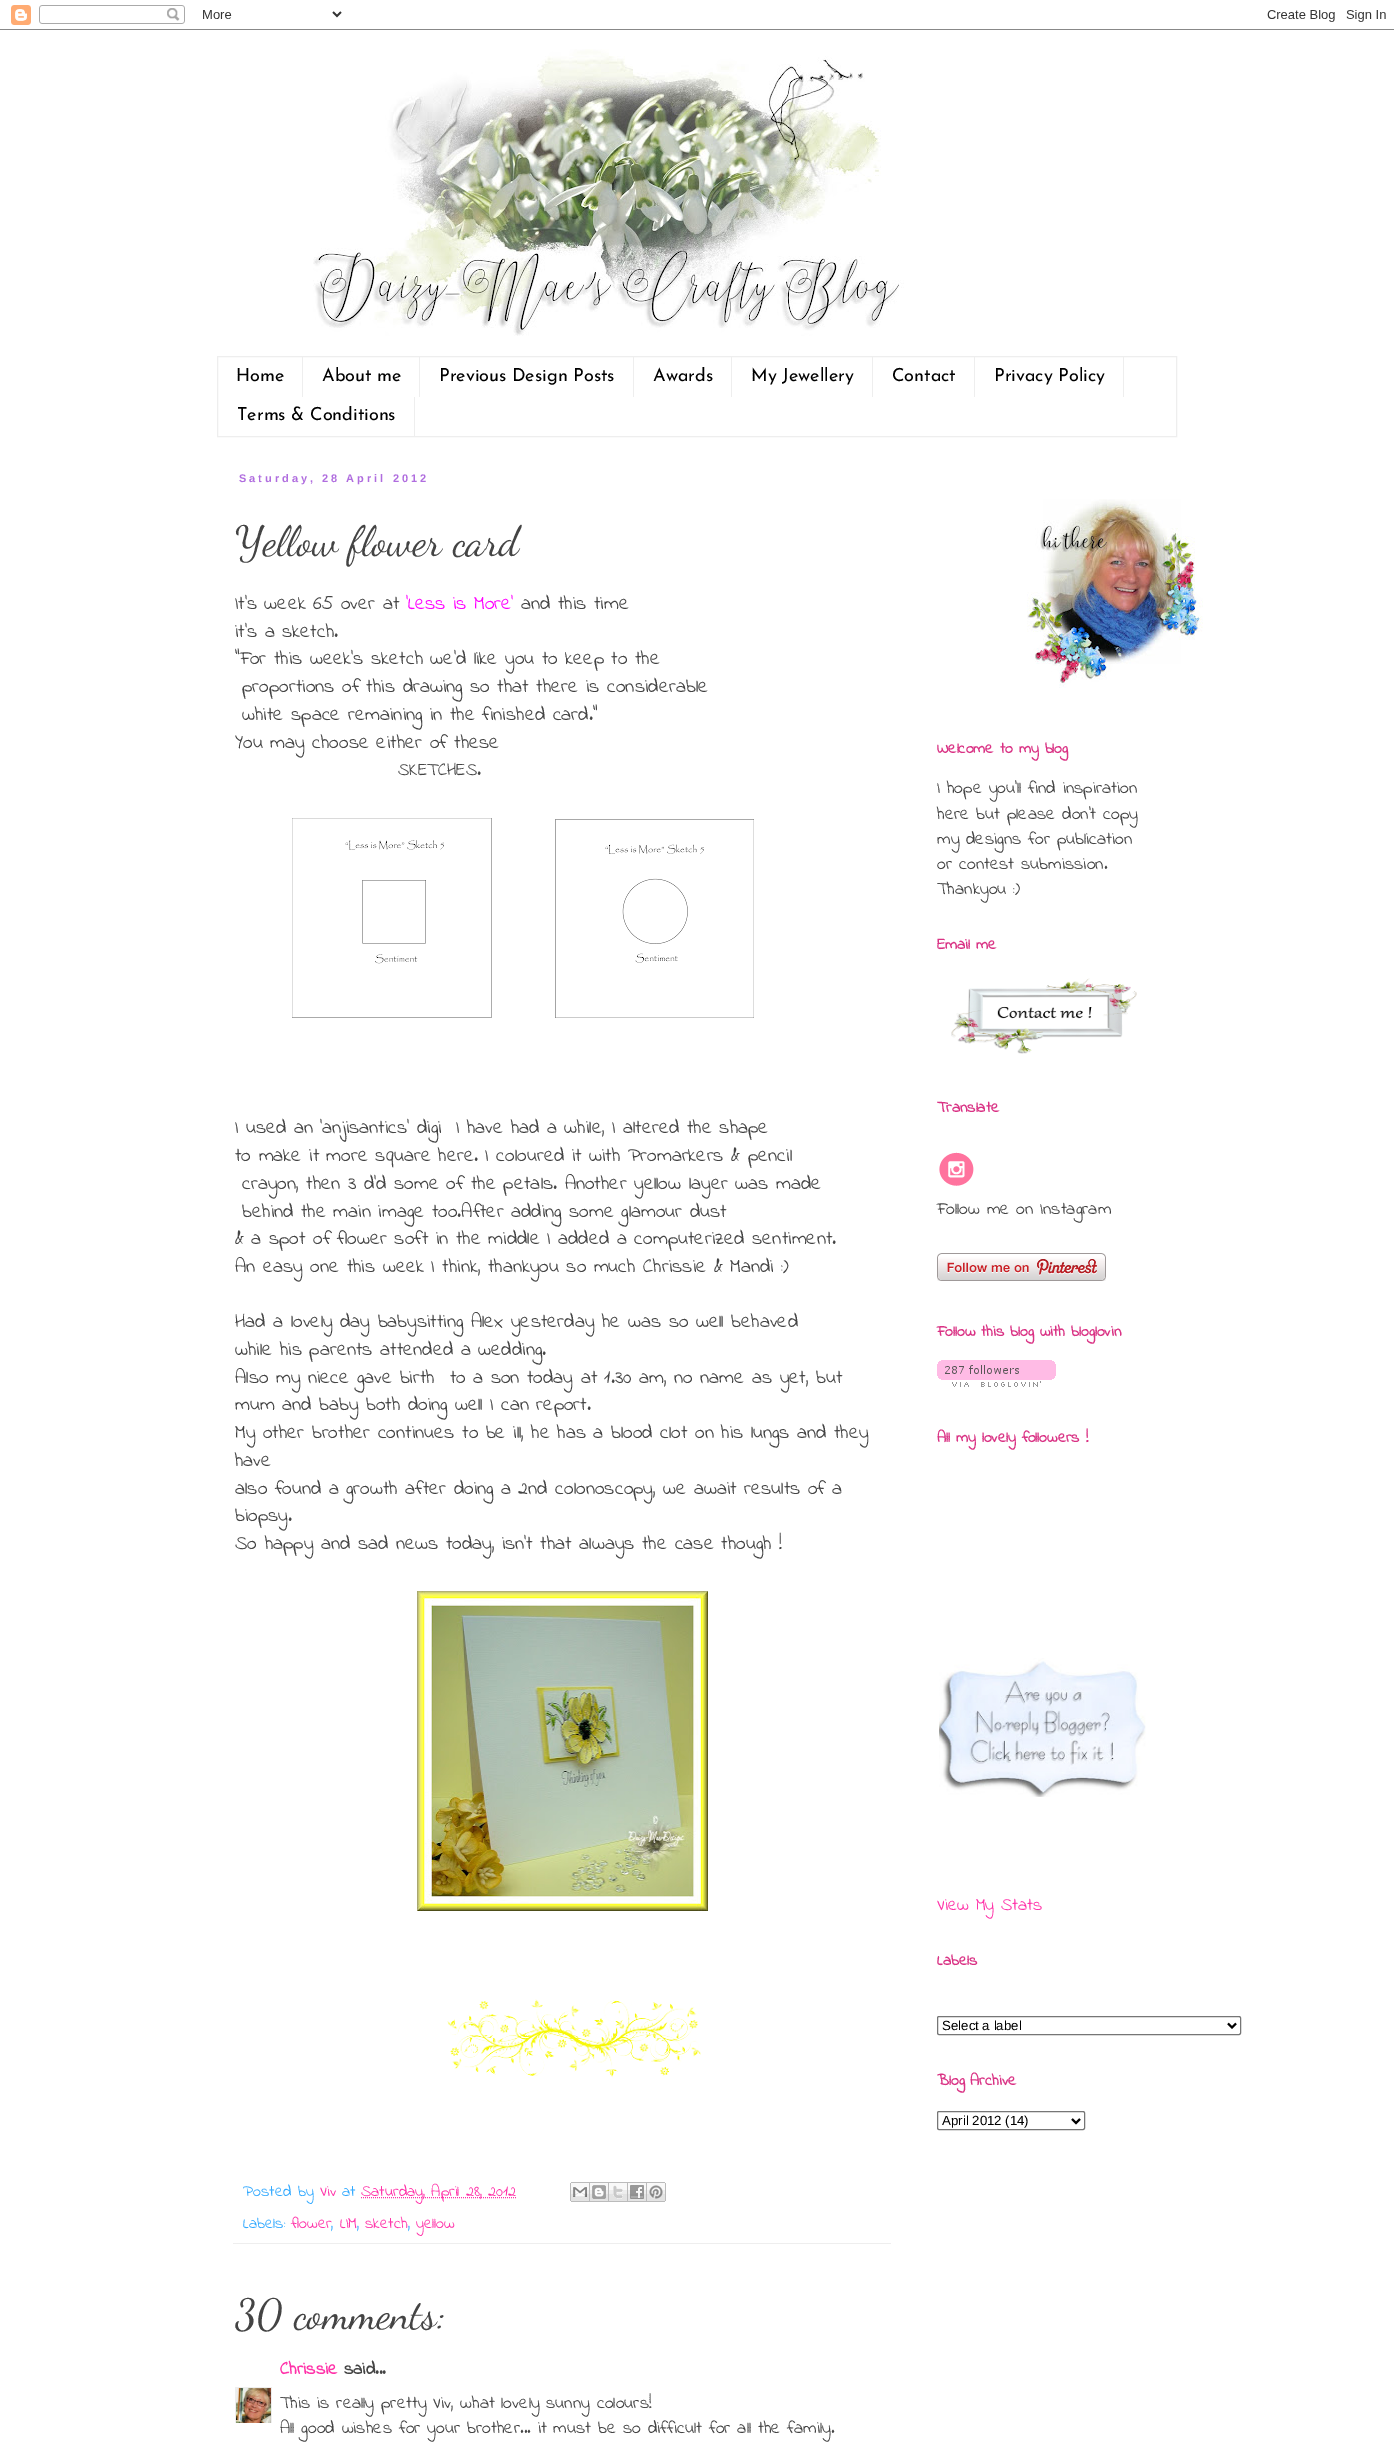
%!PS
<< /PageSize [1394 2446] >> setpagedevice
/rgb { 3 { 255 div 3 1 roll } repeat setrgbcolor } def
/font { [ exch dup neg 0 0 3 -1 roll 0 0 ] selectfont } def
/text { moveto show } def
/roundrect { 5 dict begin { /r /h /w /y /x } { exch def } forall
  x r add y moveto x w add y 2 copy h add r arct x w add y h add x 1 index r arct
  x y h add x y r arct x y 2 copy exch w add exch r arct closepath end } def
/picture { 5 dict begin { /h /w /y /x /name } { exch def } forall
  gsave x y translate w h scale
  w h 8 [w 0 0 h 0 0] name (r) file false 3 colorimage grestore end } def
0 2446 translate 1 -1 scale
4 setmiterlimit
255 255 255 rgb
0 0 1394 2446 rectfill
(img_01.rgb) 0 5 1394 25 picture
(img_02.rgb) 313 49 591 287 picture
238 238 238 rgb
217.5 356.5 959 80 rectstroke
302 357 1 40 rectfill
419 357 1 40 rectfill
633 357 1 40 rectfill
731 357 1 40 rectfill
872 357 1 40 rectfill
974 357 1 40 rectfill
1123 357 1 40 rectfill
414 397 1 39 rectfill
(img_03.rgb) 292 818 200 200 picture
(img_04.rgb) 555 819 199 199 picture
(img_05.rgb) 417 1591 291 320 picture
(img_06.rgb) 447 1999 254 79 picture
233 2243 658 1 rectfill
255 50 169 rgb
[1 1] 0 setdash
361 2197.5 moveto 155 0 rlineto stroke
(img_07.rgb) 570 2182 20 20 picture
(img_08.rgb) 590 2182 19 20 picture
(img_09.rgb) 609 2182 19 20 picture
(img_10.rgb) 628 2182 19 20 picture
(img_11.rgb) 647 2182 19 20 picture
gsave
235 2387 37 36 rectclip
238 238 238 rgb
[] 0 setdash
235.5 2387.5 36 36 rectstroke
grestore
(img_12.rgb) 236 2388 35 35 picture
(img_13.rgb) 1027 499 176 189 picture
(img_14.rgb) 951 978 186 76 picture
(img_15.rgb) 939 1152 35 34 picture
(img_16.rgb) 937 1253 169 28 picture
(img_17.rgb) 937 1360 119 27 picture
(img_18.rgb) 939 1658 207 139 picture
118 118 118 rgb
[] 0 setdash
937.5 2016.5 303 18 1.5 roundrect stroke
0 0 0 rgb
2 setlinewidth
1228 2023.5 moveto 4 4 rlineto 4 -4 rlineto stroke
118 118 118 rgb
1 setlinewidth
937.5 2111.5 147 18 1.5 roundrect stroke
0 0 0 rgb
2 setlinewidth
1072 2119 moveto 4 4 rlineto 4 -4 rlineto stroke
/JosefinSans-Thin 18 font
(Home) 236 381 text
(About me) 322 381 text
(Previous Design Posts) 439 381 text
(Awards) 653 381 text
(My Jewellery) 751 381 text
(Contact) 892 381 text
(Privacy Policy) 994 381 text
(Terms & Conditions) 237 420 text
/LiberationSans-Bold 11 font
176 109 223 rgb
239 482 moveto 3 0 (Saturday, 28 April 2012) ashow
/DancingScript-Regular 42 font
68 68 68 rgb
(Yellow flower card) 235 555 text
/IndieFlower-Regular 19.8 font
(It's week 65 over at) 235 609 text
255 0 255 rgb
('Less is More') 406 609 text
68 68 68 rgb
(and this time) 521 609 text
(it's a sketch.) 235 637 text
("For this week's sketch we'd like you to keep to the) 235 664 text
(proportions of this drawing so that there is considerable) 242 692 text
(white space remaining in the finished card.") 242 720 text
(You may choose either of these) 235 748 text
/IndieFlower-Regular 18 font
(SKETCHES) 398 775 text
/IndieFlower-Regular 19.8 font
(.) 477 775 text
(I used an 'anjisantics' digi  I have had a while, I altered the shape) 235 1133 text
(to make it more square here. I coloured it with Promarkers & pencil) 235 1161 text
(crayon, then 3 d'd some of the petals. Another yellow layer was made) 242 1189 text
(behind the main image too.After adding some glamour dust) 242 1217 text
(& a spot of flower soft in the middle I added a computerized sentiment.) 235 1244 text
(An easy one this week I think, thankyou so much Chrissie & Mandi :\)) 235 1272 text
(Had a lovely day babysitting Alex yesterday he was so well behaved) 235 1327 text
(while his parents attended a wedding.) 235 1355 text
(Also my niece gave birth  to a son today at 1.30 am, no name as yet, but) 235 1383 text
(mum and baby both doing well I can report.) 235 1410 text
(My other brother continues to be ill, he has a blood clot on his lungs and they) 235 1438 text
(have) 235 1466 text
(also found a growth after doing a 2nd colonoscopy, we await results of a) 235 1494 text
(biopsy.) 235 1521 text
(So happy and sad news today, isn't that always the case though !) 235 1549 text
/IndieFlower-Regular 16.25 font
51 170 255 rgb
(Posted by) 243 2196 text
255 50 169 rgb
(Viv) 320 2196 text
51 170 255 rgb
(at) 342 2196 text
255 50 169 rgb
(Saturday, April 28, 2012) 361 2196 text
51 170 255 rgb
(Labels:) 243 2228 text
255 50 169 rgb
(flower) 291 2228 text
51 170 255 rgb
(,) 331 2228 text
255 50 169 rgb
(LIM) 340 2228 text
51 170 255 rgb
(,) 357 2228 text
255 50 169 rgb
(sketch) 365 2228 text
51 170 255 rgb
(,) 408 2228 text
255 50 169 rgb
(yellow) 416 2228 text
/DancingScript-Regular 42 font
68 68 68 rgb
(30 comments:) 235 2328 text
/IndieFlower-Bold 18 font
255 50 169 rgb
(Chrissie) 280 2374 text
68 68 68 rgb
(said...) 344 2374 text
/IndieFlower-Regular 18 font
(This is really pretty Viv, what lovely sunny colours!) 280 2408 text
(All good wishes for your brother... it must be so difficult for all the family.) 280 2433 text
/IndieFlower-Bold 16 font
218 51 133 rgb
(Welcome to my blog) 937 753 text
/IndieFlower-Regular 18 font
68 68 68 rgb
(I hope you'll find inspiration) 937 793 text
(here but please don't copy) 937 819 text
(my designs for publication) 937 844 text
(or contest submission.) 937 869 text
(Thankyou :\)) 937 894 text
/IndieFlower-Bold 16 font
218 51 133 rgb
(Email me) 937 949 text
(Translate) 937 1112 text
/IndieFlower-Regular 18 font
68 68 68 rgb
(Follow me on Instagram) 937 1214 text
/IndieFlower-Bold 16 font
218 51 133 rgb
(Follow this blog with bloglovin) 937 1336 text
(All my lovely followers !) 937 1442 text
/IndieFlower-Regular 18 font
255 50 169 rgb
(View My Stats) 937 1910 text
/IndieFlower-Bold 16 font
218 51 133 rgb
(Labels) 937 1965 text
/LiberationSans-Regular 13.25 font
0 0 0 rgb
(Select a label) 942 2030 text
/IndieFlower-Bold 16 font
218 51 133 rgb
(Blog Archive) 937 2085 text
/LiberationSans-Regular 13.25 font
0 0 0 rgb
(April 2012 \(14\)) 942 2125 text
showpage
